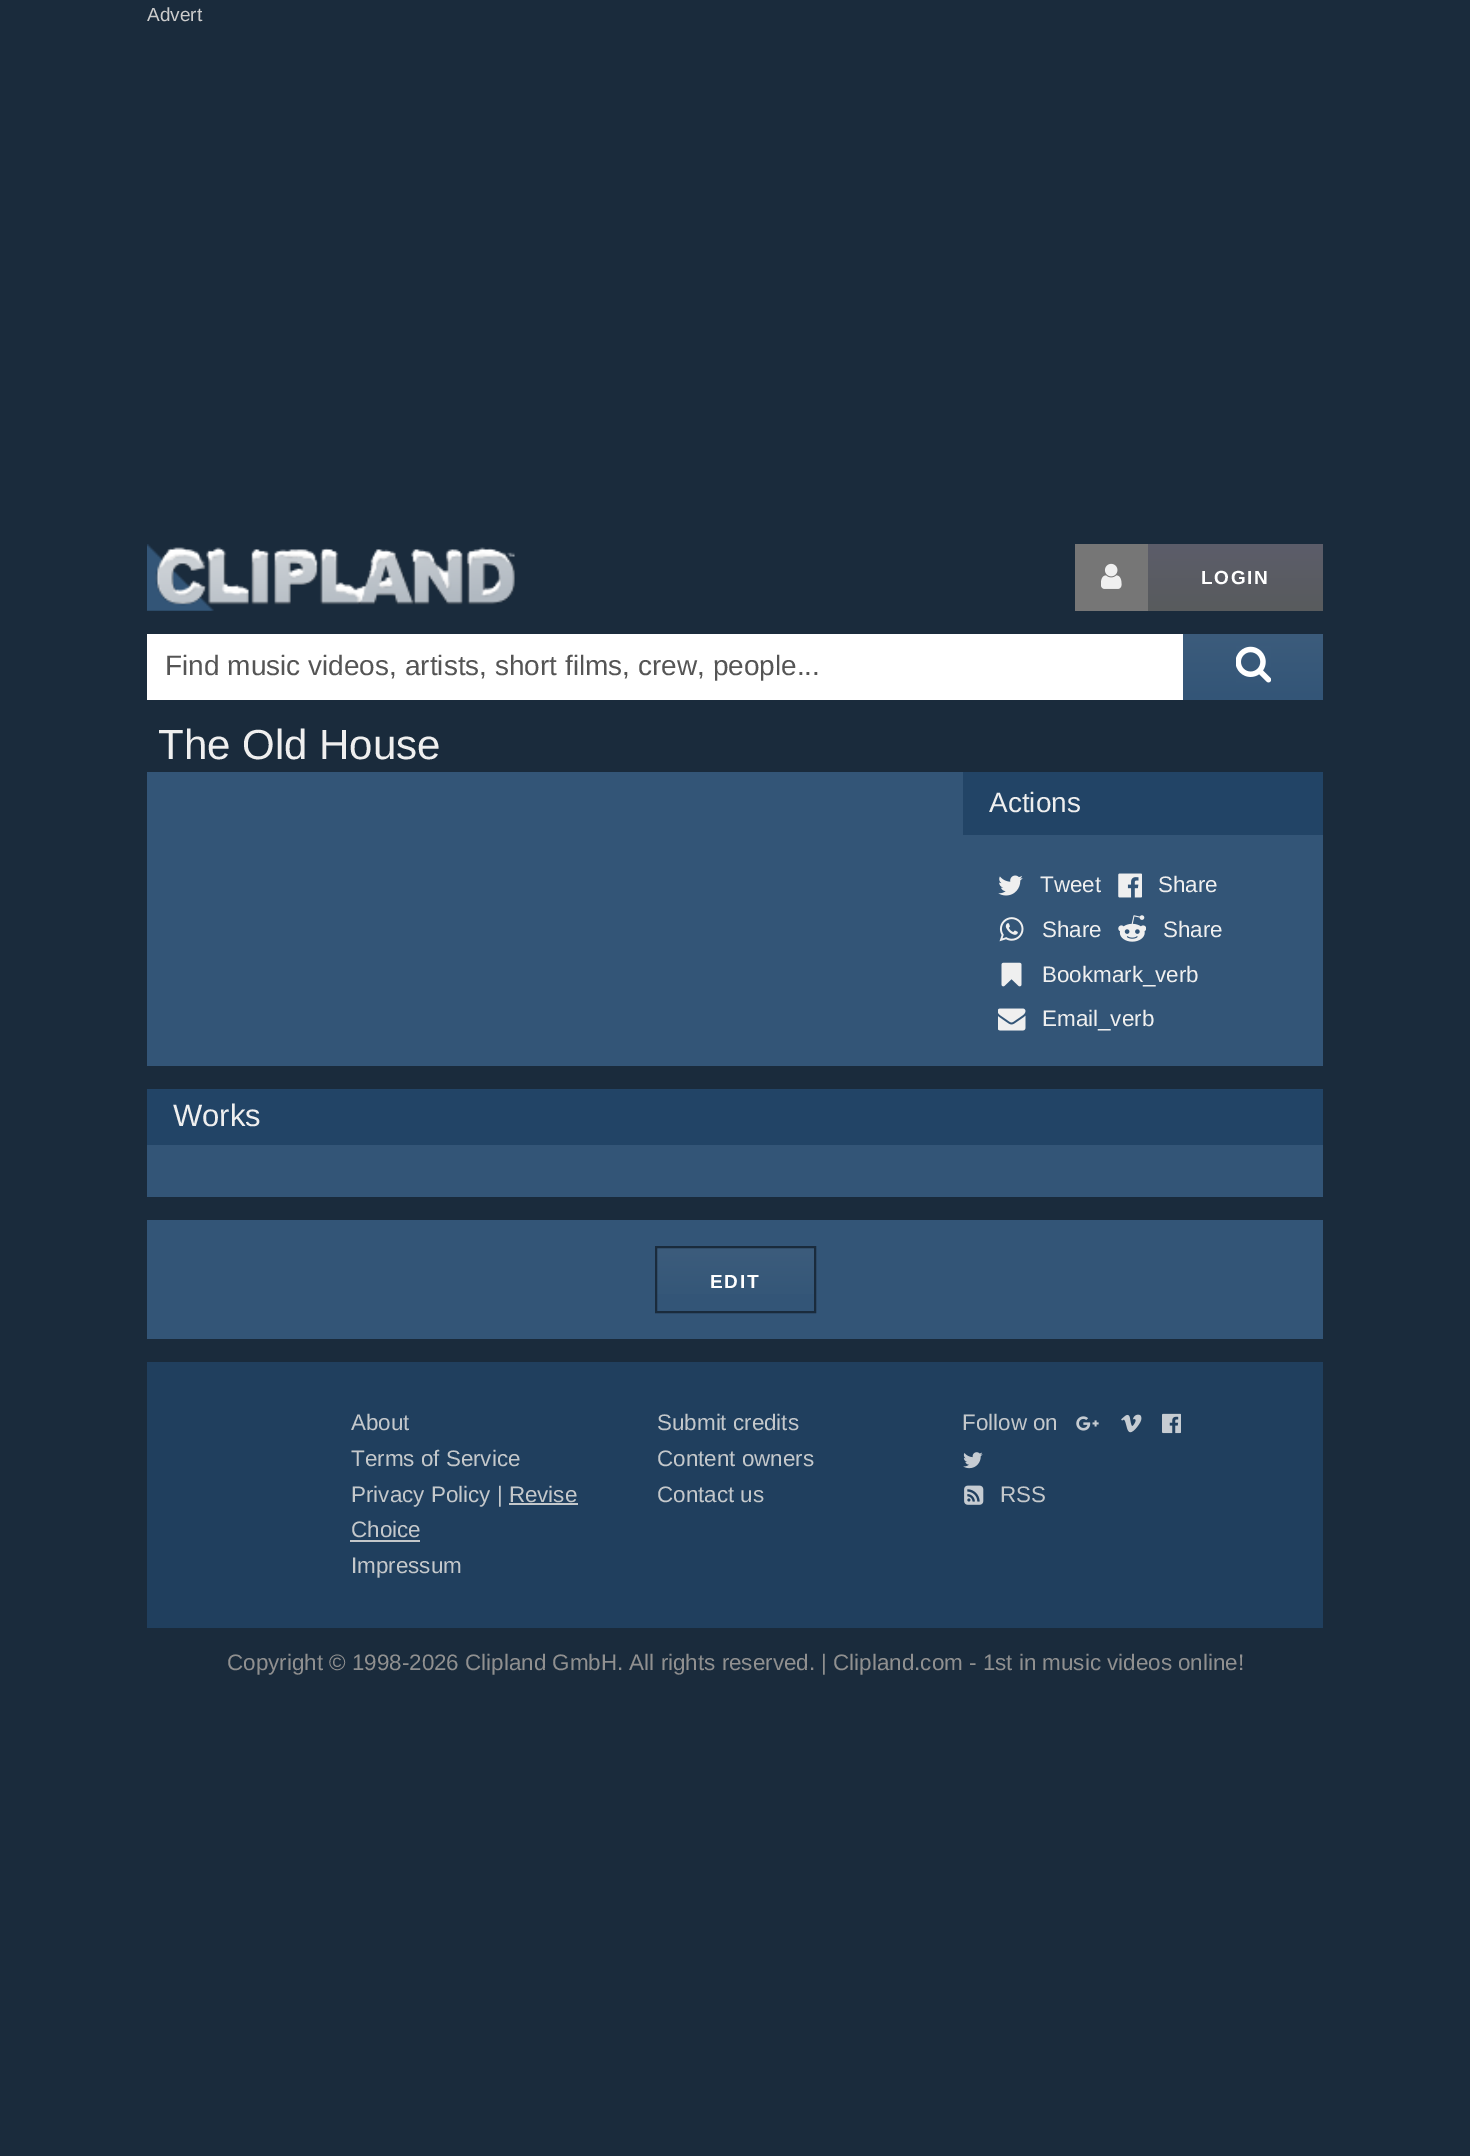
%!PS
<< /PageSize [1470 2156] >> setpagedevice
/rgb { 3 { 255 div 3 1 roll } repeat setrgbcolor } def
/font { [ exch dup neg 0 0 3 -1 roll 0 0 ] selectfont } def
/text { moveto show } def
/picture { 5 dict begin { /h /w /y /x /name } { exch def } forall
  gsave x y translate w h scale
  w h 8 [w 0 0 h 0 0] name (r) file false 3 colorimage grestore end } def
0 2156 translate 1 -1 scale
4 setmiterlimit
26 43 60 rgb
0 0 1470 2156 rectfill
(img_01.rgb) 147 544 368 67 picture
118 118 118 rgb
1075 544 73 67 rectfill
(img_02.rgb) 1101 563 21 26 picture
gsave 1148 544 moveto 175 0 rlineto 0 67 rlineto -175 0 rlineto closepath clip newpath
<< /ShadingType 2 /ColorSpace /DeviceRGB /Coords [1236 544 1236 611] /Extend [true true] /Function << /FunctionType 2 /Domain [0 1] /C0 [0.361 0.365 0.416] /C1 [0.345 0.357 0.365] /N 1 >> >> shfill grestore
255 255 255 rgb
147 634 1036 66 rectfill
gsave 1183 634 moveto 140 0 rlineto 0 66 rlineto -140 0 rlineto closepath clip newpath
<< /ShadingType 2 /ColorSpace /DeviceRGB /Coords [1253 634 1253 700] /Extend [true true] /Function << /FunctionType 2 /Domain [0 1] /C0 [0.235 0.361 0.486] /C1 [0.2 0.333 0.467] /N 1 >> >> shfill grestore
(img_03.rgb) 1236 646 35 37 picture
51 85 119 rgb
147 772 1176 294 rectfill
34 68 102 rgb
963 772 360 63 rectfill
(img_04.rgb) 998 875 25 21 picture
(img_05.rgb) 1118 873 24 25 picture
(img_06.rgb) 999 917 25 25 picture
(img_07.rgb) 1118 915 28 27 picture
(img_08.rgb) 1001 962 21 25 picture
(img_09.rgb) 998 1008 28 23 picture
147 1089 1176 56 rectfill
51 85 119 rgb
147 1145 1176 52 rectfill
147 1220 1176 119 rectfill
gsave 657 1248 moveto 157 0 rlineto 0 46 rlineto -157 0 rlineto closepath clip newpath
<< /ShadingType 2 /ColorSpace /DeviceRGB /Coords [735 1248 735 1311] /Extend [true true] /Function << /FunctionType 2 /Domain [0 1] /C0 [0.235 0.361 0.486] /C1 [0.2 0.333 0.467] /N 1 >> >> shfill grestore
26 43 60 rgb
2 setlinewidth
656 1247 159 65 rectstroke
32 63 94 rgb
147 1362 1176 266 rectfill
196 200 203 rgb
509 1503 69 2 rectfill
350 1540 70 2 rectfill
(img_10.rgb) 1076 1416 23 15 picture
(img_11.rgb) 1121 1414 21 19 picture
(img_12.rgb) 1162 1413 19 21 picture
(img_13.rgb) 963 1452 20 17 picture
(img_14.rgb) 964 1485 20 20 picture
/LiberationSans-Regular 19 font
204 204 204 rgb
(Advert) 147 21 text
/LiberationSans-Bold 19 font
255 255 255 rgb
1201 584 moveto 1.75 0 (LOGIN) ashow
/LiberationSans-Regular 28 font
85 85 85 rgb
(Find music videos, artists, short films, crew, people...) 165 675 text
/LiberationSans-Regular 42 font
239 239 239 rgb
(The Old House) 158 759 text
/LiberationSans-Regular 28 font
(Actions) 989 812 text
/LiberationSans-Regular 22.4 font
(Tweet) 1040 892 text
(Share) 1158 892 text
(Share) 1042 937 text
(Share) 1163 937 text
(Bookmark_verb) 1042 982 text
(Email_verb) 1042 1026 text
/LiberationSans-Regular 31 font
(Works) 173 1126 text
/LiberationSans-Bold 19 font
255 255 255 rgb
710 1288 moveto 1.75 0 (EDIT) ashow
/LiberationSans-Regular 22.4 font
196 200 203 rgb
(About) 351 1430 text
(Terms of Service) 351 1466 text
(Privacy Policy | Revise) 351 1502 text
(Choice) 351 1537 text
(Impressum) 351 1573 text
(Submit credits) 657 1430 text
(Content owners) 657 1466 text
(Contact us) 657 1502 text
(Follow on) 962 1430 text
(RSS) 1000 1502 text
144 144 144 rgb
(Copyright © 1998-2026 Clipland GmbH. All rights reserved. | Clipland.com - 1st in music videos online!) 227 1670 text
showpage
